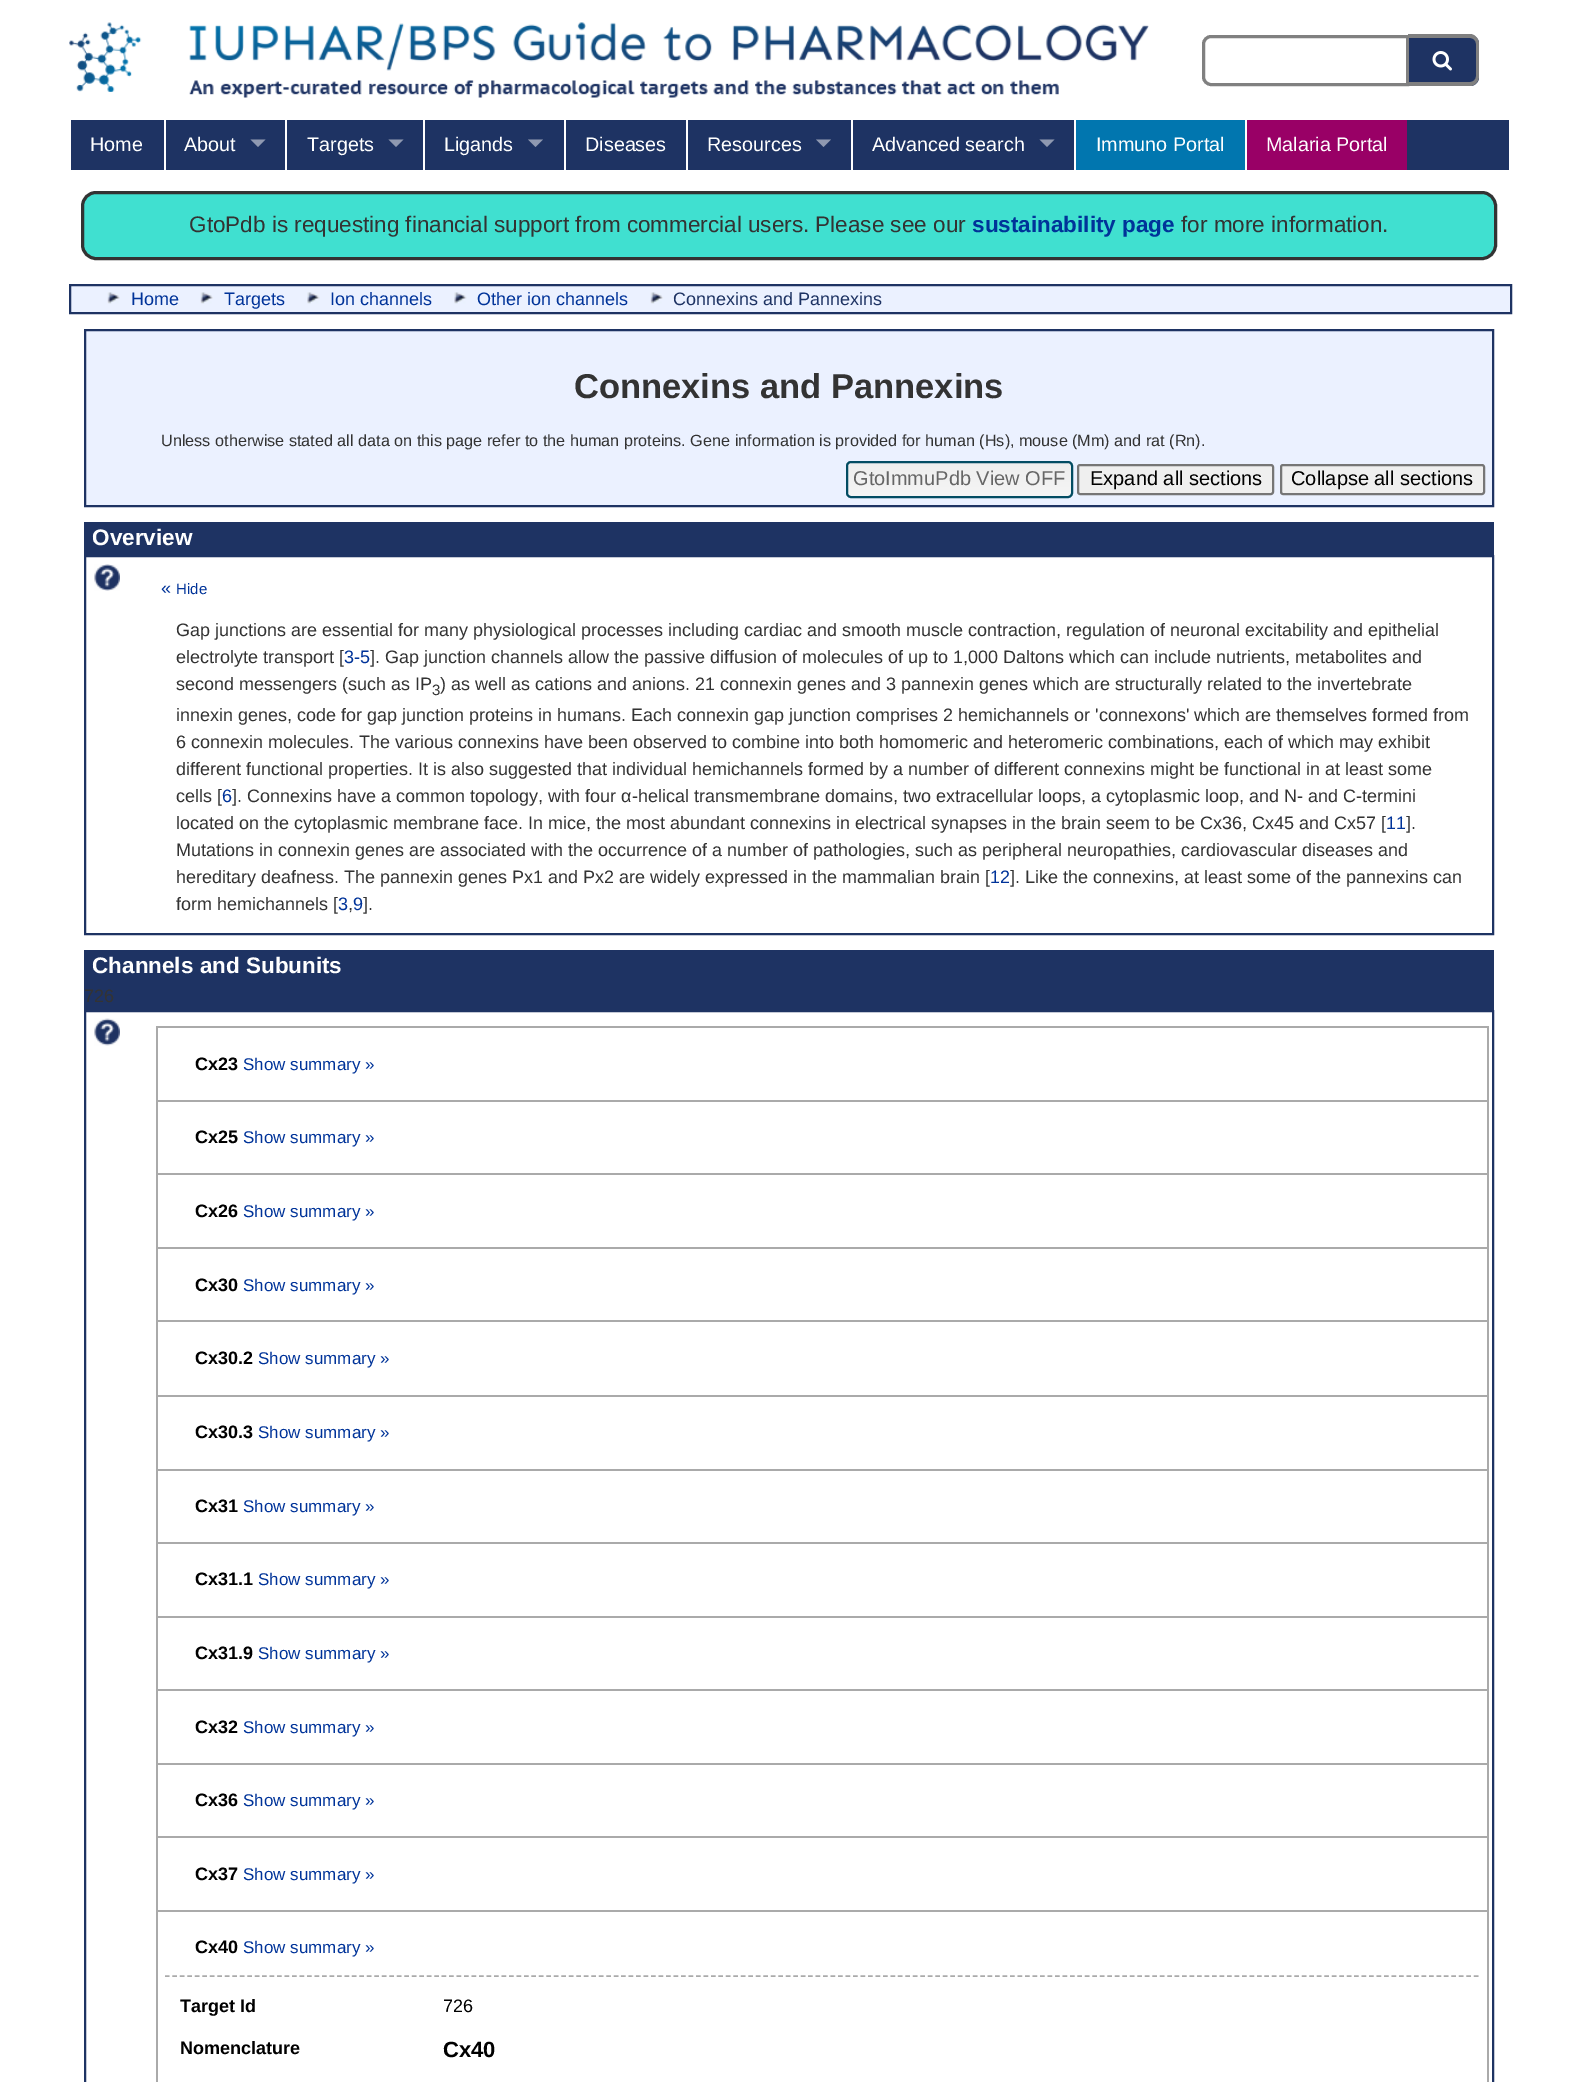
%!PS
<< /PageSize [1578 2082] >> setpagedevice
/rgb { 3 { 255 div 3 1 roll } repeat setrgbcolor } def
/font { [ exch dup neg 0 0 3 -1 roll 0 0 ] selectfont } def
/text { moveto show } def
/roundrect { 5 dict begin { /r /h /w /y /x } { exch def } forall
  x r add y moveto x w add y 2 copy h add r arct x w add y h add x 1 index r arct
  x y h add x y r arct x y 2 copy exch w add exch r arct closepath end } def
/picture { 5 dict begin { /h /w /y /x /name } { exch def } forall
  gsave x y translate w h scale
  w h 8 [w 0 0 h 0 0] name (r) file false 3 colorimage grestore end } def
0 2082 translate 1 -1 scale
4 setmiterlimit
255 255 255 rgb
0 0 1578 2082 rectfill
(img_01.rgb) 69 22 1080 76 picture
128 128 128 rgb
3 setlinewidth
1211 36.5 moveto 196.5 0 rlineto 0 48 rlineto -196.5 0 rlineto -4 0 -7.5 -3.5 -7.5 -7.5 rcurveto 0 -33 rlineto 0 -4 3.5 -7.5 7.5 -7.5 rcurveto closepath stroke
30 51 99 rgb
1409 35 moveto 61 0 rlineto 5 0 9 4 9 9 rcurveto 0 33 rlineto 0 5 -4 9 -9 9 rcurveto -61 0 rlineto closepath fill
128 128 128 rgb
1408 34 moveto 62 0 rlineto 5 0 9 5 9 10 rcurveto 0 32 rlineto 0 5 -4 10 -9 10 rcurveto -62 0 rlineto closepath 1408 38 moveto 62 0 rlineto 3 0 6 2 6 6 rcurveto 0 32 rlineto 0 4 -3 6 -6 6 rcurveto -62 0 rlineto closepath eofill
(img_02.rgb) 1432 51 20 20 picture
30 51 99 rgb
71 120 1438 50 rectfill
255 255 255 rgb
164 120 2 50 rectfill
143 153 177 rgb
250.5 139.5 moveto 15 0 rlineto -7.5 7.5 rlineto closepath fill
255 255 255 rgb
285 120 2 50 rectfill
143 153 177 rgb
388.5 139.5 moveto 15 0 rlineto -7.5 7.5 rlineto closepath fill
255 255 255 rgb
423 120 2 50 rectfill
143 153 177 rgb
528 139.5 moveto 15 0 rlineto -7.5 7.5 rlineto closepath fill
255 255 255 rgb
564 120 2 50 rectfill
686 120 2 50 rectfill
143 153 177 rgb
816 139.5 moveto 15 0 rlineto -7.5 7.5 rlineto closepath fill
255 255 255 rgb
851 120 2 50 rectfill
143 153 177 rgb
1039.5 139.5 moveto 15 0 rlineto -7.5 7.5 rlineto closepath fill
1 118 175 rgb
1076 120 169 50 rectfill
255 255 255 rgb
1074 120 2 50 rectfill
153 0 102 rgb
1247 120 160 50 rectfill
255 255 255 rgb
1245 120 2 50 rectfill
64 224 208 rgb
82.5 192.5 1413 66 13.5 roundrect gsave fill grestore
51 51 51 rgb
stroke
235 241 255 rgb
70 285 moveto 1441 0 rlineto 0 28 rlineto -1441 0 rlineto closepath gsave fill grestore
30 51 99 rgb
2 setlinewidth
stroke
(img_03.rgb) 107 292 13 12 picture
(img_03.rgb) 200 292 13 12 picture
(img_04.rgb) 307 292 13 12 picture
(img_04.rgb) 454 292 13 12 picture
(img_05.rgb) 650 292 13 12 picture
235 241 255 rgb
85 330 moveto 1408 0 rlineto 0 176 rlineto -1408 0 rlineto closepath gsave fill grestore
30 51 99 rgb
stroke
gsave
846 461 227 37 5 roundrect clip newpath
gsave 846 462 moveto 227 0 rlineto 0 35 rlineto -227 0 rlineto closepath clip newpath
<< /ShadingType 2 /ColorSpace /DeviceRGB /Coords [959 462 959 497] /Extend [true true] /Function << /FunctionType 2 /Domain [0 1] /C0 [0.933 0.933 0.933] /C1 [0.961 0.961 0.961] /N 1 >> >> shfill grestore
grestore
2 76 99 rgb
847 462 225 35 4 roundrect stroke
239 239 239 rgb
1078 465 195 29 2 roundrect gsave fill grestore
118 118 118 rgb
stroke
239 239 239 rgb
1281 465 203 29 2 roundrect gsave fill grestore
118 118 118 rgb
stroke
30 51 99 rgb
84 522 1410 33 rectfill
85 556 1408 378 rectstroke
(img_06.rgb) 94 564 26 27 picture
84 950 1410 60 rectfill
85 1011 1408 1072 rectstroke
(img_07.rgb) 94 1018 26 28 picture
170 170 170 rgb
156 1026 1332 2 rectfill
156 1100 1332 2 rectfill
156 1173 1332 2 rectfill
156 1247 1332 2 rectfill
156 1320 1332 2 rectfill
156 1395 1332 2 rectfill
156 1469 1332 2 rectfill
156 1542 1332 2 rectfill
156 1616 1332 2 rectfill
156 1689 1332 2 rectfill
156 1763 1332 2 rectfill
156 1836 1332 2 rectfill
156 1910 1332 2 rectfill
1487 1910 2 172 rectfill
1487 1836 2 75 rectfill
1487 1763 2 75 rectfill
1487 1689 2 75 rectfill
1487 1616 2 75 rectfill
1487 1542 2 75 rectfill
1487 1469 2 75 rectfill
1487 1395 2 75 rectfill
1487 1320 2 77 rectfill
1487 1247 2 75 rectfill
1487 1173 2 75 rectfill
1487 1100 2 75 rectfill
1487 1026 2 75 rectfill
156 1910 2 172 rectfill
156 1836 2 75 rectfill
156 1763 2 75 rectfill
156 1689 2 75 rectfill
156 1616 2 75 rectfill
156 1542 2 75 rectfill
156 1469 2 75 rectfill
156 1395 2 75 rectfill
156 1320 2 77 rectfill
156 1247 2 75 rectfill
156 1173 2 75 rectfill
156 1100 2 75 rectfill
156 1026 2 75 rectfill
1.5 setlinewidth
[4.5 2.98] 0 setdash
165 1976 moveto 1314 0 rlineto stroke
/LiberationSans-Regular 19.75 font
255 255 255 rgb
(Home) 90 151 text
(About) 184 151 text
(Targets) 307 151 text
(Ligands) 444 151 text
(Diseases) 585 151 text
(Resources) 707 151 text
(Advanced search) 872 151 text
(Immuno Portal) 1096 151 text
(Malaria Portal) 1266 151 text
/LiberationSans-Regular 22.5 font
51 51 51 rgb
(GtoPdb is requesting financial support from commercial users. Please see our) 189 232 text
/LiberationSans-Bold 22.5 font
0 51 153 rgb
(sustainability page) 972 232 text
/LiberationSans-Regular 22.5 font
51 51 51 rgb
(for more information.) 1181 232 text
/LiberationSans-Regular 18 font
0 51 153 rgb
(Home) 131 305 text
(Targets) 224 305 text
(Ion channels) 330 305 text
(Other ion channels) 477 305 text
30 51 99 rgb
(Connexins and Pannexins) 673 305 text
/LiberationSans-Bold 34.5 font
51 51 51 rgb
(Connexins and Pannexins) 574 398 text
/LiberationSans-Regular 16.2 font
(Unless otherwise stated all data on this page refer to the human proteins. Gene information is provided for human \(Hs\), mouse \(Mm\) and rat \(Rn\).) 161 446 text
/LiberationSans-Regular 20 font
102 102 102 rgb
(GtoImmuPdb View OFF) 853 485 text
0 0 0 rgb
(Expand all sections) 1090 485 text
(Collapse all sections) 1291 485 text
/LiberationSans-Bold 22.5 font
255 255 255 rgb
(Overview) 92 545 text
/LiberationSans-Regular 18 font
0 51 153 rgb
(«) 161 594 text
/LiberationSans-Regular 15 font
(Hide) 176 594 text
/LiberationSans-Regular 18 font
51 51 51 rgb
(Gap junctions are essential for many physiological processes including cardiac and smooth muscle contraction, regulation of neuronal excitability and epithelial) 176 636 text
(electrolyte transport [) 176 663 text
0 51 153 rgb
(3-5) 344 663 text
51 51 51 rgb
(]. Gap junction channels allow the passive diffusion of molecules of up to 1,000 Daltons which can include nutrients, metabolites and) 370 663 text
(second messengers \(such as IP) 176 690 text
/LiberationSans-Regular 15 font
(3) 432 695 text
/LiberationSans-Regular 18 font
(\) as well as cations and anions. 21 connexin genes and 3 pannexin genes which are structurally related to the invertebrate) 440 690 text
(innexin genes, code for gap junction proteins in humans. Each connexin gap junction comprises 2 hemichannels or 'connexons' which are themselves formed from) 176 721 text
(6 connexin molecules. The various connexins have been observed to combine into both homomeric and heteromeric combinations, each of which may exhibit) 176 748 text
(different functional properties. It is also suggested that individual hemichannels formed by a number of different connexins might be functional in at least some) 176 775 text
(cells [) 176 802 text
0 51 153 rgb
(6) 222 802 text
51 51 51 rgb
(]. Connexins have a common topology, with four α-helical transmembrane domains, two extracellular loops, a cytoplasmic loop, and N- and C-termini) 232 802 text
(located on the cytoplasmic membrane face. In mice, the most abundant connexins in electrical synapses in the brain seem to be Cx36, Cx45 and Cx57 [) 176 829 text
0 51 153 rgb
(11) 1386 829 text
51 51 51 rgb
(].) 1406 829 text
(Mutations in connexin genes are associated with the occurrence of a number of pathologies, such as peripheral neuropathies, cardiovascular diseases and) 176 856 text
(hereditary deafness. The pannexin genes Px1 and Px2 are widely expressed in the mammalian brain [) 176 883 text
0 51 153 rgb
(12) 990 883 text
51 51 51 rgb
(]. Like the connexins, at least some of the pannexins can) 1010 883 text
(form hemichannels [) 176 910 text
0 51 153 rgb
(3 9) 338 910 text
51 51 51 rgb
(].) 363 910 text
(,) 348 910 text
/LiberationSans-Bold 22.5 font
255 255 255 rgb
(Channels and Subunits) 92 973 text
/LiberationSans-Regular 18 font
51 51 51 rgb
(726) 84 1002 text
/LiberationSans-Bold 18 font
0 0 0 rgb
(Cx23) 195 1070 text
/LiberationSans-Regular 17 font
0 51 153 rgb
(Show summary ») 243 1070 text
/LiberationSans-Bold 18 font
0 0 0 rgb
(Cx25) 195 1143 text
/LiberationSans-Regular 17 font
0 51 153 rgb
(Show summary ») 243 1143 text
/LiberationSans-Bold 18 font
0 0 0 rgb
(Cx26) 195 1217 text
/LiberationSans-Regular 17 font
0 51 153 rgb
(Show summary ») 243 1217 text
/LiberationSans-Bold 18 font
0 0 0 rgb
(Cx30) 195 1291 text
/LiberationSans-Regular 17 font
0 51 153 rgb
(Show summary ») 243 1291 text
/LiberationSans-Bold 18 font
0 0 0 rgb
(Cx30.2) 195 1364 text
/LiberationSans-Regular 17 font
0 51 153 rgb
(Show summary ») 258 1364 text
/LiberationSans-Bold 18 font
0 0 0 rgb
(Cx30.3) 195 1438 text
/LiberationSans-Regular 17 font
0 51 153 rgb
(Show summary ») 258 1438 text
/LiberationSans-Bold 18 font
0 0 0 rgb
(Cx31) 195 1512 text
/LiberationSans-Regular 17 font
0 51 153 rgb
(Show summary ») 243 1512 text
/LiberationSans-Bold 18 font
0 0 0 rgb
(Cx31.1) 195 1585 text
/LiberationSans-Regular 17 font
0 51 153 rgb
(Show summary ») 258 1585 text
/LiberationSans-Bold 18 font
0 0 0 rgb
(Cx31.9) 195 1659 text
/LiberationSans-Regular 17 font
0 51 153 rgb
(Show summary ») 258 1659 text
/LiberationSans-Bold 18 font
0 0 0 rgb
(Cx32) 195 1733 text
/LiberationSans-Regular 17 font
0 51 153 rgb
(Show summary ») 243 1733 text
/LiberationSans-Bold 18 font
0 0 0 rgb
(Cx36) 195 1806 text
/LiberationSans-Regular 17 font
0 51 153 rgb
(Show summary ») 243 1806 text
/LiberationSans-Bold 18 font
0 0 0 rgb
(Cx37) 195 1880 text
/LiberationSans-Regular 17 font
0 51 153 rgb
(Show summary ») 243 1880 text
/LiberationSans-Bold 18 font
0 0 0 rgb
(Cx40) 195 1953 text
/LiberationSans-Regular 17 font
0 51 153 rgb
(Show summary ») 243 1953 text
/LiberationSans-Bold 18 font
0 0 0 rgb
(Target Id) 180 2012 text
/LiberationSans-Regular 18 font
(726) 443 2012 text
/LiberationSans-Bold 18 font
(Nomenclature) 180 2054 text
/LiberationSans-Bold 22 font
(Cx40) 443 2057 text
showpage
